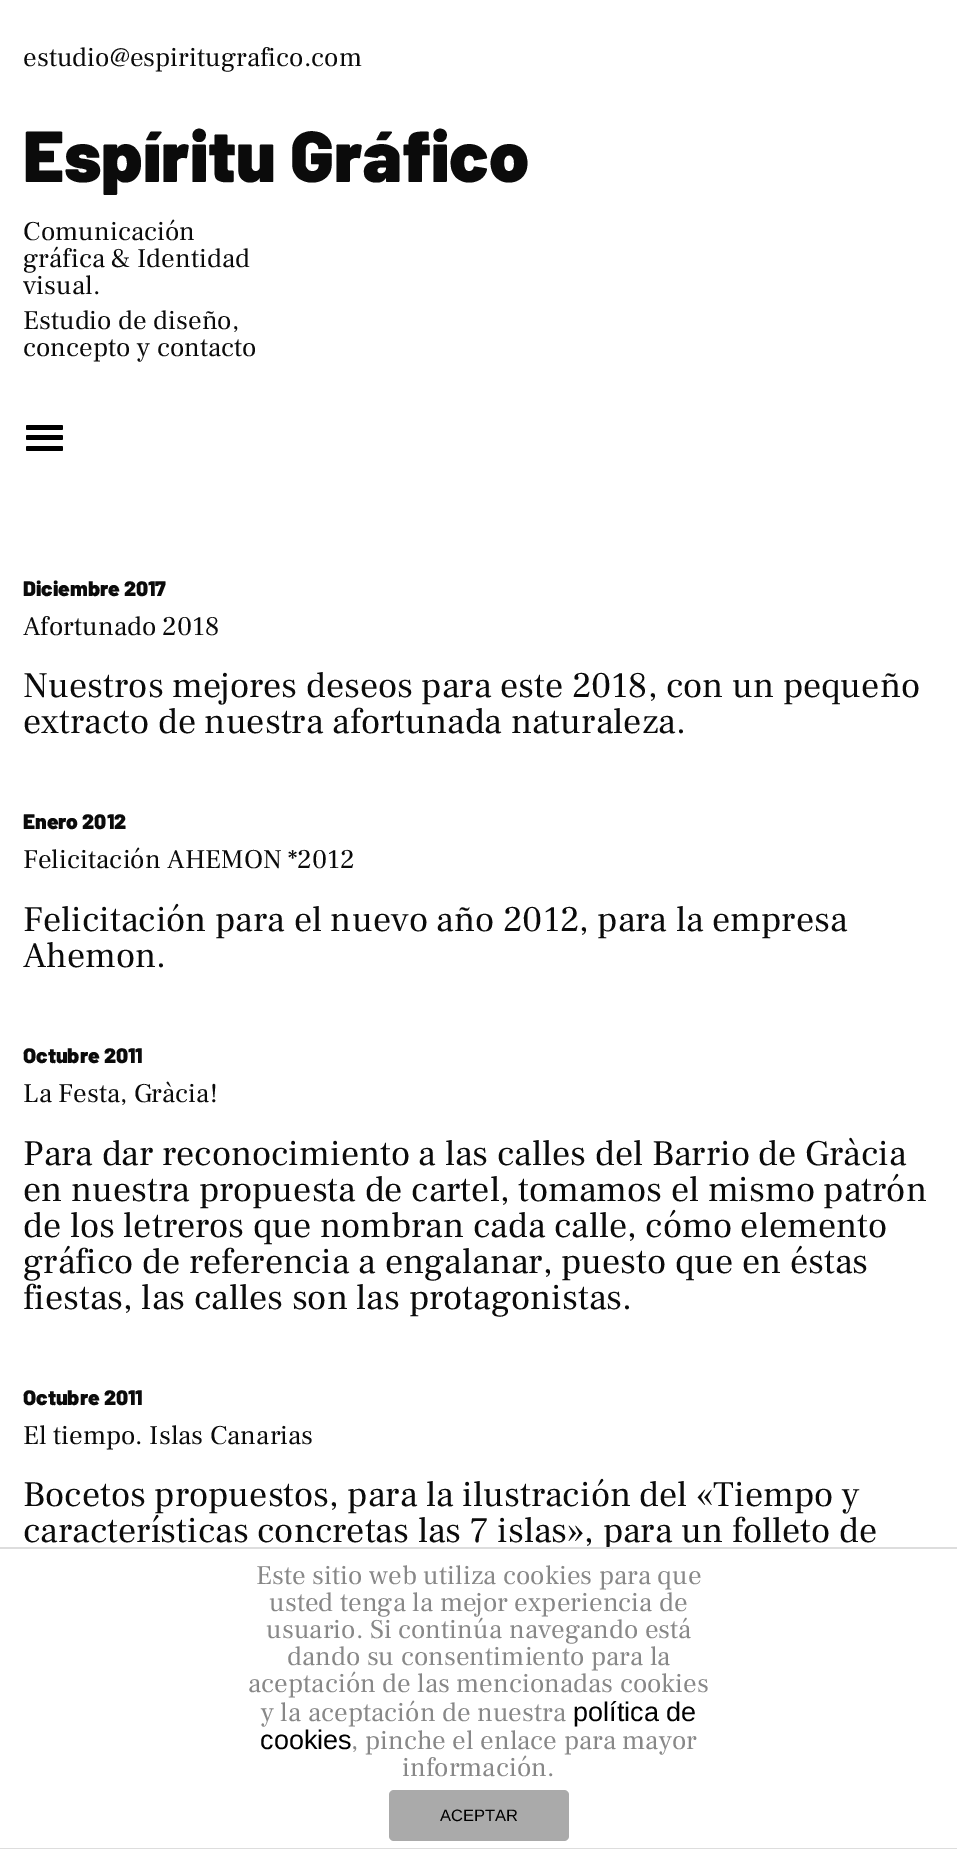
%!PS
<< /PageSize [957 1849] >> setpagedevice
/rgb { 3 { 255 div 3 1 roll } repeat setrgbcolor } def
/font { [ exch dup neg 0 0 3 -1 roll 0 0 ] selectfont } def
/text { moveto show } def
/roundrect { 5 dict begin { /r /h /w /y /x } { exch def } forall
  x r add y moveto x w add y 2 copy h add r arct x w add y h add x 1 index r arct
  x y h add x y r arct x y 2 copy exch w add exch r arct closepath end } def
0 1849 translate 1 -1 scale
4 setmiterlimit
255 255 255 rgb
0 0 957 1849 rectfill
0 0 0 rgb
26 425 37 5 1.5 roundrect fill
26 435 37 5 1.5 roundrect fill
26 446 37 5 1.5 roundrect fill
221 221 221 rgb
0 1848 957 1 rectfill
170 170 170 rgb
389 1790 180 51 5 roundrect fill
/FrankRuhlLibre-Regular 27 font
11 11 11 rgb
(estudio@espiritugrafico.com) 23 66 text
/Barlow-Black 72 font
(Espíritu Gráfico) 23 182 text
/FrankRuhlLibre-Regular 27 font
(Comunicación) 23 240 text
(gráfica & Identidad) 23 267 text
(visual.) 23 294 text
(Estudio de diseño,) 23 329 text
(concepto y contacto) 23 356 text
/Barlow-Black 21 font
(Diciembre 2017) 23 596 text
/FrankRuhlLibre-Regular 27 font
(Afortunado 2018) 23 635 text
/FrankRuhlLibre-Regular 36 font
(Nuestros mejores deseos para este 2018, con un pequeño) 23 697 text
(extracto de nuestra afortunada naturaleza.) 23 733 text
/Barlow-Black 21 font
(Enero 2012) 23 829 text
/FrankRuhlLibre-Regular 27 font
(Felicitación AHEMON *2012) 23 868 text
/FrankRuhlLibre-Regular 36 font
(Felicitación para el nuevo año 2012, para la empresa) 23 931 text
(Ahemon.) 23 967 text
/Barlow-Black 21 font
(Octubre 2011) 23 1063 text
/FrankRuhlLibre-Regular 27 font
(La Festa, Gràcia!) 23 1102 text
/FrankRuhlLibre-Regular 36 font
(Para dar reconocimiento a las calles del Barrio de Gràcia) 23 1165 text
(en nuestra propuesta de cartel, tomamos el mismo patrón) 23 1201 text
(de los letreros que nombran cada calle, cómo elemento) 23 1237 text
(gráfico de referencia a engalanar, puesto que en éstas) 23 1273 text
(fiestas, las calles son las protagonistas.) 23 1309 text
/Barlow-Black 21 font
(Octubre 2011) 23 1405 text
/FrankRuhlLibre-Regular 27 font
(El tiempo. Islas Canarias) 23 1444 text
/FrankRuhlLibre-Regular 36 font
(Bocetos propuestos, para la ilustración del «Tiempo y) 23 1506 text
(características concretas las 7 islas», para un folleto de) 23 1542 text
255 255 255 rgb
603 1549 9 1 rectfill
221 221 221 rgb
0 1547 957 2 rectfill
/FrankRuhlLibre-Regular 27 font
136 136 136 rgb
(Este sitio web utiliza cookies para que) 256 1584 text
(usted tenga la mejor experiencia de) 269 1611 text
(usuario. Si continúa navegando está) 266 1638 text
(dando su consentimiento para la) 287 1665 text
(aceptación de las mencionadas cookies) 248 1692 text
(y la aceptación de nuestra) 261 1721 text
/LiberationSans-Regular 27 font
0 0 0 rgb
(política de) 573 1721 text
(cookies) 260 1749 text
/FrankRuhlLibre-Regular 27 font
136 136 136 rgb
(, pinche el enlace para mayor) 351 1749 text
(información.) 402 1776 text
/LiberationSans-Regular 16.5 font
0 0 0 rgb
(ACEPTAR) 440 1821 text
showpage
